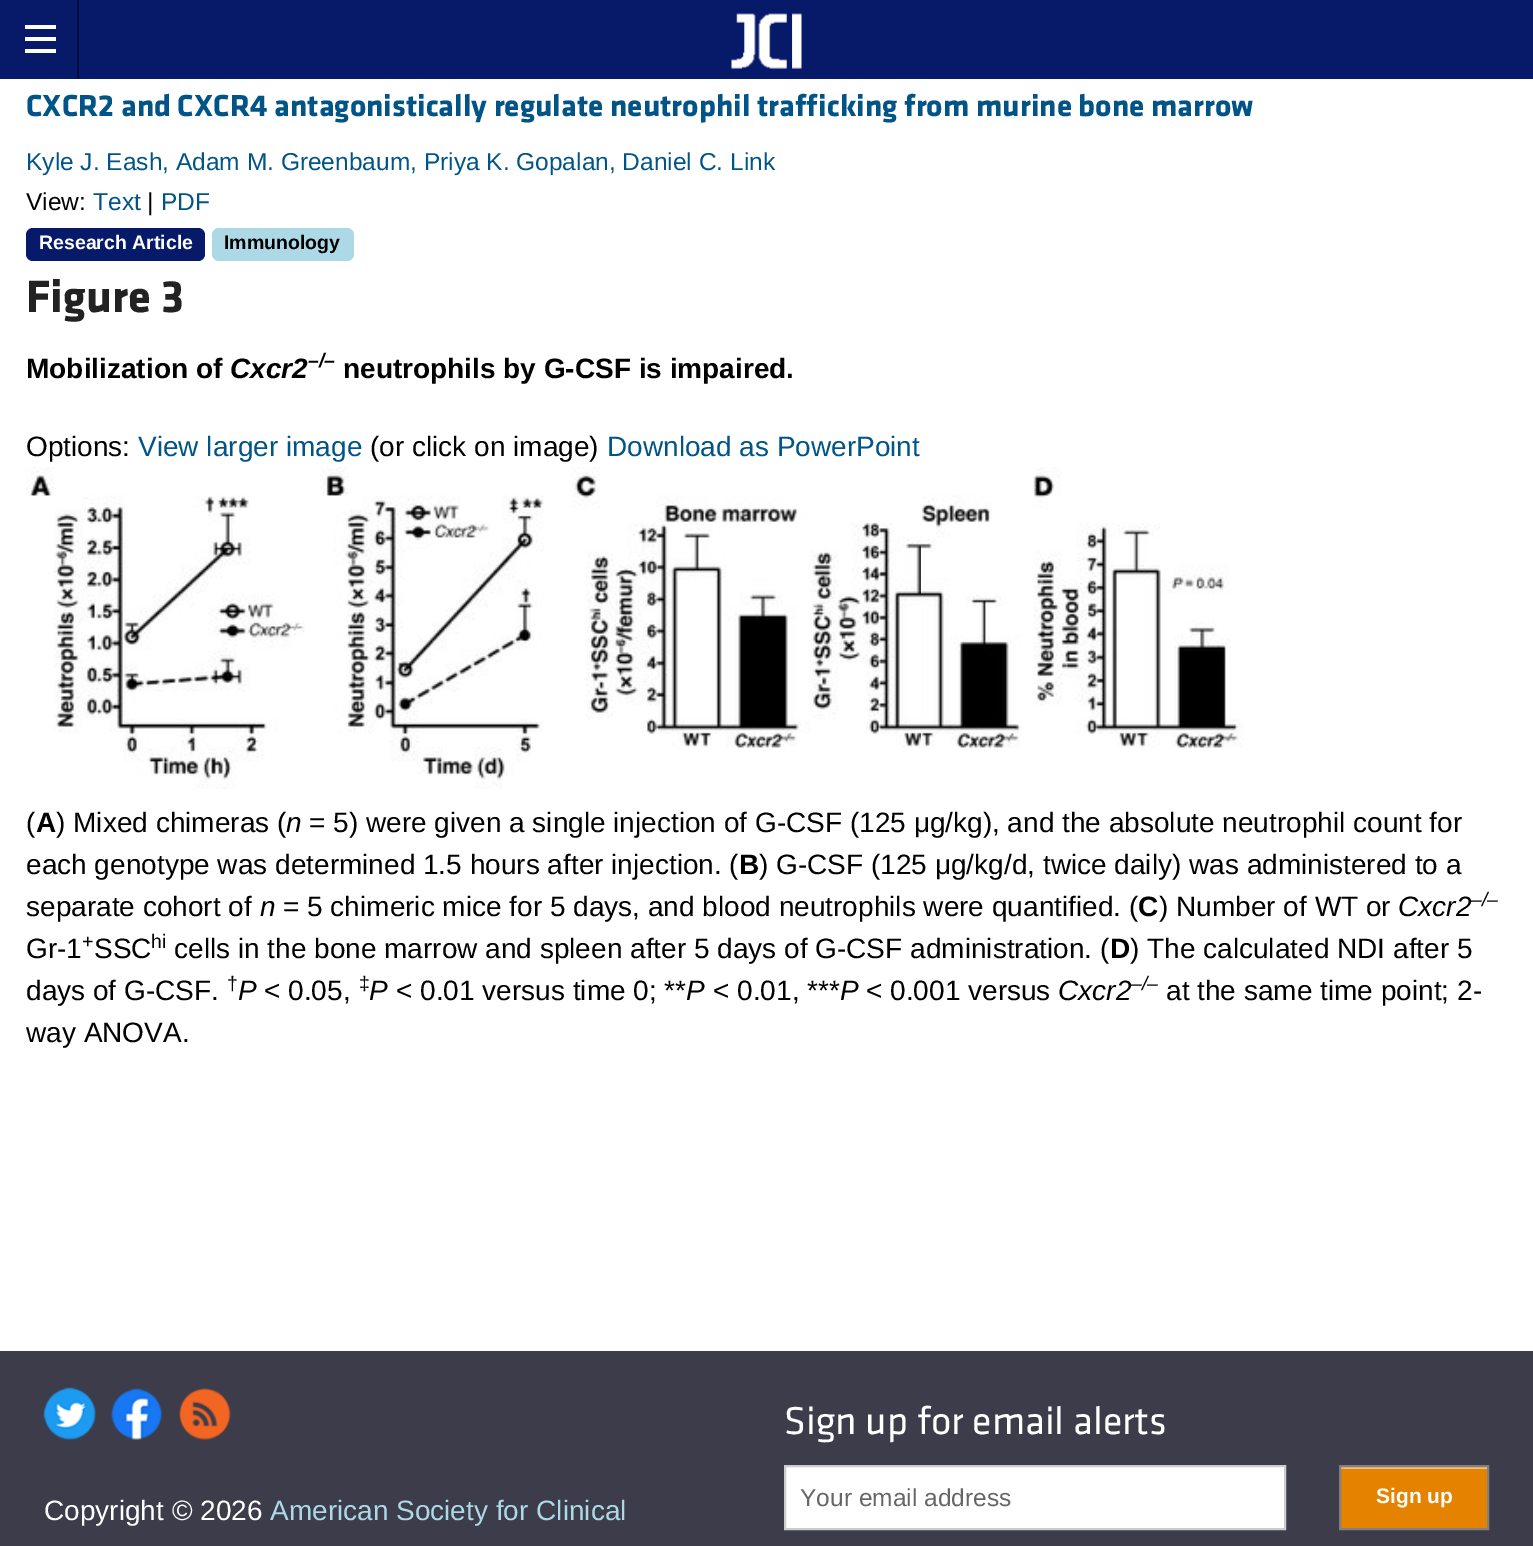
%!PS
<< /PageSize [1533 1546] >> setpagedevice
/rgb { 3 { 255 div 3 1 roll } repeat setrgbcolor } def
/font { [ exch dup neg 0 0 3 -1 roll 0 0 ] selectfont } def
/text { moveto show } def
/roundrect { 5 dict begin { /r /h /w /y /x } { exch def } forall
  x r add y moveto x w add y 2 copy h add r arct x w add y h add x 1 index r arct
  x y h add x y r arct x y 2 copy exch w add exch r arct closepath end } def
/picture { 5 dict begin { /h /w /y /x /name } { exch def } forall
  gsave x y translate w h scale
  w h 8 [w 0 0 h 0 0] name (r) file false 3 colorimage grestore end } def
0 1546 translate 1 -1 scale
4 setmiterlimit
255 255 255 rgb
0 0 1533 1546 rectfill
7 26 105 rgb
0 0 1533 79 rectfill
4 13 53 rgb
77 0 2 79 rectfill
255 255 255 rgb
25 49 31 4 rectfill
25 37 31 4 rectfill
25 25 31 4 rectfill
(img_01.rgb) 731 13 71 56 picture
7 26 105 rgb
26 228 179 33 7 roundrect fill
173 216 230 rgb
212 228 142 33 7 roundrect fill
(img_02.rgb) 26 467 1218 322 picture
60 60 75 rgb
0 1351 1533 195 rectfill
255 255 255 rgb
785 1466 moveto 500 0 rlineto 0 63 rlineto -500 0 rlineto closepath gsave fill grestore
204 204 204 rgb
2 setlinewidth
stroke
229 130 0 rgb
1341 1469 146 59 rectfill
242 193 128 rgb
1341 1467 147 2 rectfill
128 128 128 rgb
1340 1466 148 63 rectstroke
(img_03.rgb) 43 1387 53 53 picture
(img_04.rgb) 110 1388 52 52 picture
(img_05.rgb) 178 1388 53 52 picture
/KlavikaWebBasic-Bold 31.5 font
1 84 134 rgb
(CXCR2 and CXCR4 antagonistically regulate neutrophil trafficking from murine bone marrow) 26 116 text
/LiberationSans-Regular 24.5 font
(Kyle J. Eash, Adam M. Greenbaum, Priya K. Gopalan, Daniel C. Link) 26 170 text
0 0 0 rgb
(View:) 26 210 text
1 84 134 rgb
(Text) 93 210 text
0 0 0 rgb
(|) 147 210 text
1 84 134 rgb
(PDF) 161 210 text
/LiberationSans-Bold 19.5 font
255 255 255 rgb
(Research Article) 39 249 text
0 0 0 rgb
(Immunology) 224 249 text
/KlavikaWebBasic-Bold 47 font
34 34 34 rgb
(Figure 3) 26 312 text
/LiberationSans-Bold 28 font
0 0 0 rgb
(Mobilization of) 26 378 text
/LiberationSans-BoldItalic 28 font
(Cxcr2) 230 378 text
/LiberationSans-BoldItalic 19.5 font
(–/–) 308 367 text
/LiberationSans-Bold 28 font
(neutrophils by G-CSF is impaired.) 343 378 text
/LiberationSans-Regular 28 font
(Options:) 26 456 text
1 84 134 rgb
(View larger image) 138 456 text
0 0 0 rgb
(\(or click on image\)) 370 456 text
1 84 134 rgb
(Download as PowerPoint) 607 456 text
0 0 0 rgb
(\() 26 832 text
/LiberationSans-Bold 28 font
(A) 36 832 text
/LiberationSans-Regular 28 font
(\) Mixed chimeras \() 56 832 text
/LiberationSans-Italic 28 font
(n) 286 832 text
/LiberationSans-Regular 28 font
(= 5\) were given a single injection of G-CSF \(125 μg/kg\), and the absolute neutrophil count for) 309 832 text
(each genotype was determined 1.5 hours after injection. \() 26 874 text
/LiberationSans-Bold 28 font
(B) 739 874 text
/LiberationSans-Regular 28 font
(\) G-CSF \(125 μg/kg/d, twice daily\) was administered to a) 759 874 text
(separate cohort of) 26 916 text
/LiberationSans-Italic 28 font
(n) 260 916 text
/LiberationSans-Regular 28 font
(= 5 chimeric mice for 5 days, and blood neutrophils were quantified. \() 283 916 text
/LiberationSans-Bold 28 font
(C) 1138 916 text
/LiberationSans-Regular 28 font
(\) Number of WT or) 1159 916 text
/LiberationSans-Italic 28 font
(Cxcr2) 1398 916 text
/LiberationSans-Italic 19.5 font
(–/–) 1471 906 text
/LiberationSans-Regular 28 font
(Gr-1) 26 958 text
/LiberationSans-Regular 19.5 font
(+) 82 948 text
/LiberationSans-Regular 28 font
(SSC) 94 958 text
/LiberationSans-Regular 19.5 font
(hi) 151 948 text
/LiberationSans-Regular 28 font
(cells in the bone marrow and spleen after 5 days of G-CSF administration. \() 174 958 text
/LiberationSans-Bold 28 font
(D) 1110 958 text
/LiberationSans-Regular 28 font
(\) The calculated NDI after 5) 1130 958 text
(days of G-CSF.) 26 1000 text
/LiberationSans-Regular 19.5 font
(†) 227 990 text
/LiberationSans-Italic 28 font
(P) 238 1000 text
/LiberationSans-Regular 28 font
(< 0.05,) 264 1000 text
/LiberationSans-Regular 19.5 font
(‡) 359 990 text
/LiberationSans-Italic 28 font
(P) 369 1000 text
/LiberationSans-Regular 28 font
(< 0.01 versus time 0; **) 396 1000 text
/LiberationSans-Italic 28 font
(P) 686 1000 text
/LiberationSans-Regular 28 font
(< 0.01, ***) 713 1000 text
/LiberationSans-Italic 28 font
(P) 840 1000 text
/LiberationSans-Regular 28 font
(< 0.001 versus) 866 1000 text
/LiberationSans-Italic 28 font
(Cxcr2) 1058 1000 text
/LiberationSans-Italic 19.5 font
(–/–) 1131 990 text
/LiberationSans-Regular 28 font
(at the same time point; 2-) 1166 1000 text
(way ANOVA.) 26 1042 text
/KlavikaWebBasic-Regular 40.25 font
255 255 255 rgb
(Sign up for email alerts) 784 1434 text
/LiberationSans-Regular 24.5 font
102 102 102 rgb
(Your email address) 800 1506 text
/LiberationSans-Bold 21 font
255 255 255 rgb
(Sign up) 1376 1503 text
/LiberationSans-Regular 28 font
(Copyright © 2026) 44 1520 text
173 216 230 rgb
(American Society for Clinical) 270 1520 text
showpage
